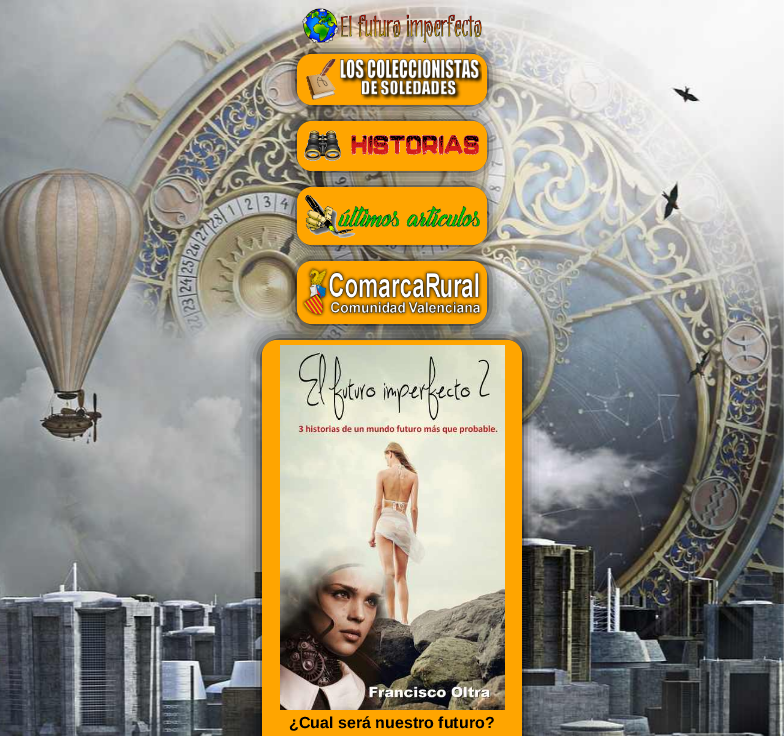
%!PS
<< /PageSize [784 736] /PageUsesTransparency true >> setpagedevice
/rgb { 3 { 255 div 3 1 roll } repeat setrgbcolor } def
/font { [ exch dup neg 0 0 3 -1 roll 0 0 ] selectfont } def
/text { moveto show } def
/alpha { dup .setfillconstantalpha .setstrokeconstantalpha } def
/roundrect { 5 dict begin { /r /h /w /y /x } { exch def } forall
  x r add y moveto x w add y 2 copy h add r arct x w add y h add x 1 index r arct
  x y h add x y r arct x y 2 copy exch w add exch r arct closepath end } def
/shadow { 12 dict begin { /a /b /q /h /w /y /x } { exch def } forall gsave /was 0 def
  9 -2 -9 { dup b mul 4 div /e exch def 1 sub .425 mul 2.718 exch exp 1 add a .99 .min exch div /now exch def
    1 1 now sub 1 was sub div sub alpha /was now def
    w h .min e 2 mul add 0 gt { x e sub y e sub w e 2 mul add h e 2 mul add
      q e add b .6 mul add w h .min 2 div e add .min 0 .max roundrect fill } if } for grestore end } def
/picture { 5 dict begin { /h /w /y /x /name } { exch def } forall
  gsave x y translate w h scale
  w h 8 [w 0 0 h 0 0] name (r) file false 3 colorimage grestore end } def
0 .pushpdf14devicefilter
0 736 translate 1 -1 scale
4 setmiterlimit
255 255 255 rgb
0 0 784 736 rectfill
(img_01.rgb) 0 0 784 736 picture
(img_02.rgb) 302 8 180 35 picture
0 0 0 rgb
297 54 190 51 15 7.5 1 shadow
255 165 0 rgb
297 54 190 51 15 roundrect fill
(img_03.rgb) 306 59 176 41 picture
0 0 0 rgb
297 121 190 50 15 7.5 1 shadow
255 165 0 rgb
297 121 190 50 15 roundrect fill
(img_04.rgb) 304 130 175 31 picture
0 0 0 rgb
297 187 190 58 15 7.5 1 shadow
255 165 0 rgb
297 187 190 58 15 roundrect fill
(img_05.rgb) 305 195 175 43 picture
0 0 0 rgb
262 340 260 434 15 7.5 1 shadow
255 165 0 rgb
262 340 260 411 15 roundrect fill
0 0 0 rgb
297 261 190 63 15 7.5 1 shadow
255 165 0 rgb
297 261 190 63 15 roundrect fill
(img_06.rgb) 302 266 180 51 picture
(img_07.rgb) 280 345 225 365 picture
/LiberationSans-Bold 16 font
0 0 0 rgb
(¿Cual será nuestro futuro?) 289 728 text
.poppdf14devicefilter showpage
